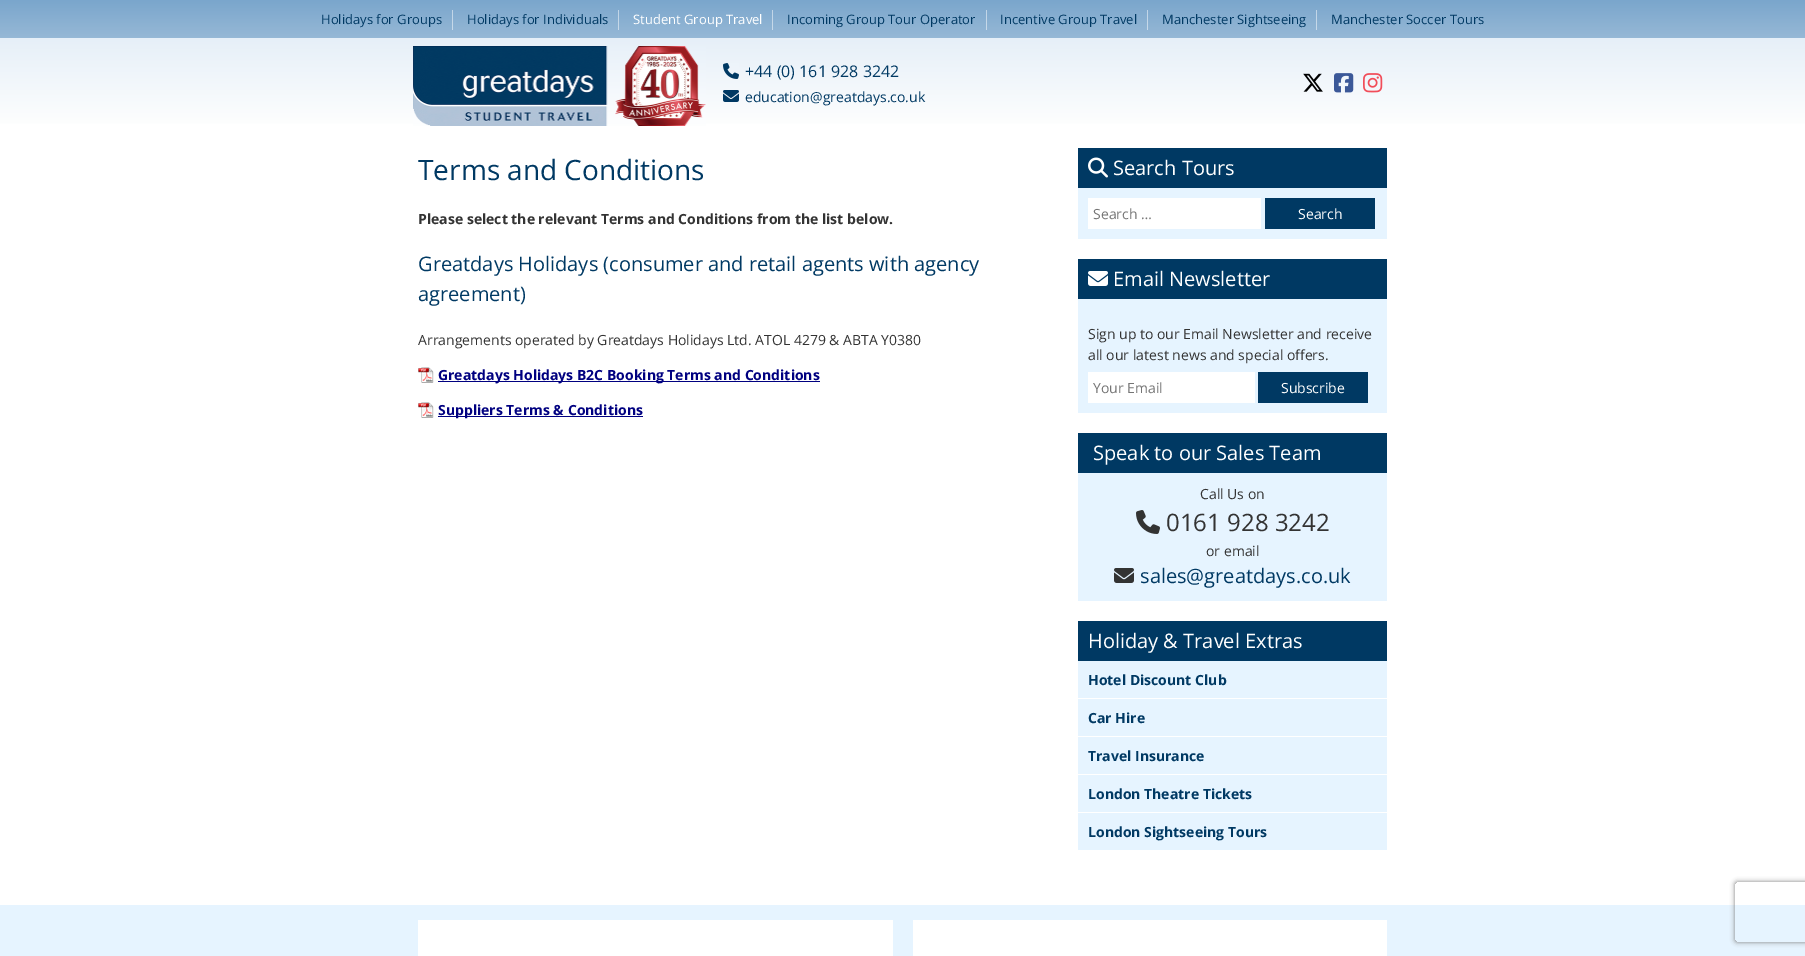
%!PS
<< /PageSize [1805 956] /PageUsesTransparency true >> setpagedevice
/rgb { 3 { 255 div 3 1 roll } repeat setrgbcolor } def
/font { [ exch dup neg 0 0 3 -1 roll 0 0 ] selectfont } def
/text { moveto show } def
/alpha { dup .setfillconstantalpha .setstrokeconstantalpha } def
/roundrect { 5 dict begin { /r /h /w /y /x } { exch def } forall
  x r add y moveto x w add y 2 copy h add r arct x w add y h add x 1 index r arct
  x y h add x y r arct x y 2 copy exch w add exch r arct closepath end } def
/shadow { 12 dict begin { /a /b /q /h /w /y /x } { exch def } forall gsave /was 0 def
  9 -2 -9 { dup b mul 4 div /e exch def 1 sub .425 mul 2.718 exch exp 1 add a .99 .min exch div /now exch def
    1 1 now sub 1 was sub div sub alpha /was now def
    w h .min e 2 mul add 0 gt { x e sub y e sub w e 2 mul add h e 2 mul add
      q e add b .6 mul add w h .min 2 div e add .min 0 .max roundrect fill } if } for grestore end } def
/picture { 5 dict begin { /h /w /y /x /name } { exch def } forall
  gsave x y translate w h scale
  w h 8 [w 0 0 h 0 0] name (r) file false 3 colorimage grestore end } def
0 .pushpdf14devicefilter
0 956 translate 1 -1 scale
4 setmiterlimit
255 255 255 rgb
0 0 1805 956 rectfill
gsave 0 38 moveto 1805 0 rlineto 0 86 rlineto -1805 0 rlineto closepath clip newpath
<< /ShadingType 2 /ColorSpace /DeviceRGB /Coords [903 0 903 133] /Extend [true true] /Function << /FunctionType 2 /Domain [0 1] /C0 [0.863 0.914 0.961] /C1 [1 1 1] /N 1 >> >> shfill grestore
gsave 0 0 moveto 1805 0 rlineto 0 38 rlineto -1805 0 rlineto closepath clip newpath
<< /ShadingType 2 /ColorSpace /DeviceRGB /Coords [903 0 903 38] /Extend [true true] /Function << /FunctionType 2 /Domain [0 1] /C0 [0.478 0.651 0.8] /C1 [0.588 0.722 0.839] /N 1 >> >> shfill grestore
gsave 1316 10 moveto 1 0 rlineto 0 20 rlineto -1 0 rlineto closepath clip newpath
<< /ShadingType 2 /ColorSpace /DeviceRGB /Coords [903 0 903 38] /Extend [true true] /Function << /FunctionType 2 /Domain [0 1] /C0 [0.741 0.827 0.902] /C1 [0.796 0.863 0.922] /N 1 >> >> shfill grestore
gsave 1147 10 moveto 1 0 rlineto 0 20 rlineto -1 0 rlineto closepath clip newpath
<< /ShadingType 2 /ColorSpace /DeviceRGB /Coords [903 0 903 38] /Extend [true true] /Function << /FunctionType 2 /Domain [0 1] /C0 [0.741 0.827 0.902] /C1 [0.796 0.863 0.922] /N 1 >> >> shfill grestore
gsave 986 10 moveto 1 0 rlineto 0 20 rlineto -1 0 rlineto closepath clip newpath
<< /ShadingType 2 /ColorSpace /DeviceRGB /Coords [903 0 903 38] /Extend [true true] /Function << /FunctionType 2 /Domain [0 1] /C0 [0.741 0.827 0.902] /C1 [0.796 0.863 0.922] /N 1 >> >> shfill grestore
gsave 772 10 moveto 1 0 rlineto 0 20 rlineto -1 0 rlineto closepath clip newpath
<< /ShadingType 2 /ColorSpace /DeviceRGB /Coords [903 0 903 38] /Extend [true true] /Function << /FunctionType 2 /Domain [0 1] /C0 [0.741 0.827 0.902] /C1 [0.796 0.863 0.922] /N 1 >> >> shfill grestore
gsave 618 10 moveto 1 0 rlineto 0 20 rlineto -1 0 rlineto closepath clip newpath
<< /ShadingType 2 /ColorSpace /DeviceRGB /Coords [903 0 903 38] /Extend [true true] /Function << /FunctionType 2 /Domain [0 1] /C0 [0.741 0.827 0.902] /C1 [0.796 0.863 0.922] /N 1 >> >> shfill grestore
gsave 452 10 moveto 1 0 rlineto 0 20 rlineto -1 0 rlineto closepath clip newpath
<< /ShadingType 2 /ColorSpace /DeviceRGB /Coords [903 0 903 38] /Extend [true true] /Function << /FunctionType 2 /Domain [0 1] /C0 [0.741 0.827 0.902] /C1 [0.796 0.863 0.922] /N 1 >> >> shfill grestore
(img_01.rgb) 413 46 293 80 picture
(img_02.rgb) 723 63 16 16 picture
(img_03.rgb) 723 90 16 12 picture
(img_04.rgb) 1303 73 20 19 picture
(img_05.rgb) 1334 73 20 20 picture
(img_06.rgb) 1363 73 20 20 picture
(img_07.rgb) 418 367 16 16 picture
0 0 128 rgb
438 381 382 1 rectfill
(img_07.rgb) 418 402 16 16 picture
438 416 205 1 rectfill
0 57 99 rgb
1078 148 309 40 rectfill
(img_08.rgb) 1088 157 20 21 picture
230 244 255 rgb
1078 188 309 51 rectfill
255 255 255 rgb
1088 198 173 31 rectfill
0 57 99 rgb
1265 198 110 31 rectfill
1078 259 309 40 rectfill
(img_09.rgb) 1088 271 20 15 picture
230 244 255 rgb
1078 299 309 114 rectfill
255 255 255 rgb
1088 372 167 31 rectfill
0 57 99 rgb
1258 372 110 31 rectfill
1078 433 309 40 rectfill
230 244 255 rgb
1078 473 309 128 rectfill
(img_10.rgb) 1136 510 24 24 picture
(img_11.rgb) 1114 568 20 15 picture
0 57 99 rgb
1078 621 309 40 rectfill
230 244 255 rgb
1078 661 309 37 rectfill
1078 699 309 37 rectfill
1078 737 309 37 rectfill
1078 775 309 37 rectfill
1078 813 309 37 rectfill
0 905 1805 51 rectfill
gsave
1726 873 moveto 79 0 rlineto 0 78 rlineto -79 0 rlineto closepath 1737 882 moveto 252 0 rlineto 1 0 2 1 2 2 rcurveto 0 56 rlineto 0 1 -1 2 -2 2 rcurveto -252 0 rlineto -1 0 -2 -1 -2 -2 rcurveto 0 -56 rlineto 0 -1 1 -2 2 -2 rcurveto closepath eoclip newpath
128 128 128 rgb
1735 882 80 60 2 2.5 1 shadow
grestore
255 255 255 rgb
418 920 475 36 rectfill
913 920 474 36 rectfill
/OpenSans-Regular 13 font
0 57 99 rgb
(Holidays for Groups) 321 24 text
(Holidays for Individuals) 467 24 text
255 255 255 rgb
(Student Group Travel) 633 24 text
0 57 99 rgb
(Incoming Group Tour Operator) 787 24 text
(Incentive Group Travel) 1000 24 text
(Manchester Sightseeing) 1162 24 text
(Manchester Soccer Tours) 1331 24 text
/OpenSans-Regular 16 font
(+44 \(0\) 161 928 3242) 745 77 text
/OpenSans-Regular 14 font
(education@greatdays.co.uk) 745 102 text
/OpenSans-Regular 28 font
(Terms and Conditions) 418 180 text
/OpenSans-Bold 14 font
51 51 51 rgb
(Please select the relevant Terms and Conditions from the list below.) 418 224 text
/OpenSans-Regular 20 font
0 57 99 rgb
(Greatdays Holidays \(consumer and retail agents with agency) 418 271 text
(agreement\)) 418 301 text
/OpenSans-Regular 14 font
51 51 51 rgb
(Arrangements operated by Greatdays Holidays Ltd. ATOL 4279 & ABTA Y0380) 418 345 text
/OpenSans-Bold 14 font
0 0 128 rgb
(Greatdays Holidays B2C Booking Terms and Conditions) 438 380 text
(Suppliers Terms & Conditions) 438 415 text
/OpenSans-Regular 20 font
255 255 255 rgb
(Search Tours) 1113 175 text
/OpenSans-Regular 14 font
117 117 117 rgb
(Search …) 1093 219 text
255 255 255 rgb
(Search) 1298 219 text
/OpenSans-Regular 20 font
(Email Newsletter) 1113 286 text
/OpenSans-Regular 14 font
51 51 51 rgb
(Sign up to our Email Newsletter and receive) 1088 339 text
(all our latest news and special offers.) 1088 360 text
117 117 117 rgb
(Your Email) 1093 393 text
255 255 255 rgb
(Subscribe) 1281 393 text
/OpenSans-Regular 20 font
(Speak to our Sales Team) 1093 460 text
/OpenSans-Regular 14 font
51 51 51 rgb
(Call Us on) 1200 499 text
/OpenSans-Regular 24 font
(0161 928 3242) 1166 531 text
/OpenSans-Regular 14 font
(or email) 1206 556 text
/OpenSans-Regular 20 font
0 57 99 rgb
(sales@greatdays.co.uk) 1140 583 text
255 255 255 rgb
(Holiday & Travel Extras) 1088 648 text
/OpenSans-Bold 14 font
0 57 99 rgb
(Hotel Discount Club) 1088 685 text
(Car Hire) 1088 723 text
(Travel Insurance) 1088 761 text
(London Theatre Tickets) 1088 799 text
(London Sightseeing Tours) 1088 837 text
.poppdf14devicefilter showpage
